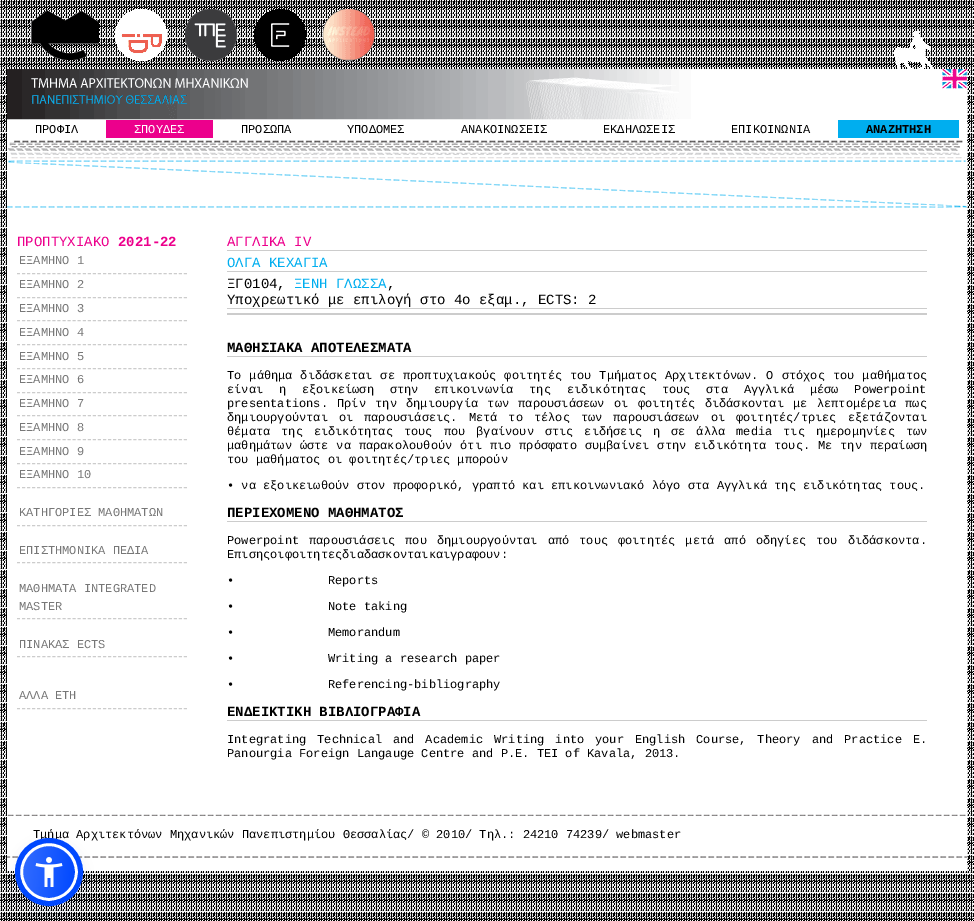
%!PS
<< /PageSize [974 921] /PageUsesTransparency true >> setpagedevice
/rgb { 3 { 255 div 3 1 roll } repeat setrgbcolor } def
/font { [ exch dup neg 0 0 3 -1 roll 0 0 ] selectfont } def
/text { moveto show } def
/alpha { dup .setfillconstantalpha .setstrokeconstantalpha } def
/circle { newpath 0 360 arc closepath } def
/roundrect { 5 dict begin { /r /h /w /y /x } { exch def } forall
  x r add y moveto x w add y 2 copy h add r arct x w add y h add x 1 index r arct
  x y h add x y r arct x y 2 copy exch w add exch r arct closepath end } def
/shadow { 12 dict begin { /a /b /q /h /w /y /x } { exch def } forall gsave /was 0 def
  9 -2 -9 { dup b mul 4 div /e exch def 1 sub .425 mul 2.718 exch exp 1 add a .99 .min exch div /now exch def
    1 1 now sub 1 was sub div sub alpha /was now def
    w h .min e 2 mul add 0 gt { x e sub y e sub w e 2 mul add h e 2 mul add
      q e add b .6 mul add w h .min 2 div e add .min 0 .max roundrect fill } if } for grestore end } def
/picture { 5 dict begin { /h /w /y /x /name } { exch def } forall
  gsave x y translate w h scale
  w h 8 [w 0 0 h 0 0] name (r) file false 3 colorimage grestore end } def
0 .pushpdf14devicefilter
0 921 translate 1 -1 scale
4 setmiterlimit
255 255 255 rgb
0 0 974 921 rectfill
(img_01.rgb) 0 0 974 921 picture
(img_02.rgb) 7 9 960 111 picture
7 120 960 751 rectfill
(img_03.rgb) 7 140 960 68 picture
236 0 140 rgb
106 120 107 18 rectfill
0 174 239 rgb
838 120 121 18 rectfill
204 204 204 rgb
[3 2.06] 0 setdash
17 273.5 moveto 170 0 rlineto stroke
17 297.5 moveto 170 0 rlineto stroke
17 320.5 moveto 170 0 rlineto stroke
17 344.5 moveto 170 0 rlineto stroke
17 368.5 moveto 170 0 rlineto stroke
17 392.5 moveto 170 0 rlineto stroke
17 415.5 moveto 170 0 rlineto stroke
17 439.5 moveto 170 0 rlineto stroke
17 463.5 moveto 170 0 rlineto stroke
17 487.5 moveto 170 0 rlineto stroke
17 525.5 moveto 170 0 rlineto stroke
17 562.5 moveto 170 0 rlineto stroke
17 618.5 moveto 170 0 rlineto stroke
17 656.5 moveto 170 0 rlineto stroke
17 708.5 moveto 170 0 rlineto stroke
227 250 700 1 rectfill
227 271 700 1 rectfill
227 308 700 1 rectfill
227 313 700 2 rectfill
227 356 700 1 rectfill
227 521 700 1 rectfill
227 720 700 1 rectfill
(img_04.rgb) 7 814 960 44 picture
93 100 148 rgb
20 845 58 58 29 2 0.2 shadow
37 44 97 rgb
20 848 58 58 29 7.5 0.15 shadow
gsave
20 843 58 58 29 roundrect clip newpath
gsave 23 846 moveto 52 0 rlineto 0 52 rlineto -52 0 rlineto closepath clip newpath
<< /ShadingType 2 /ColorSpace /DeviceRGB /Coords [21 869 77 875] /Extend [true true] /Function << /FunctionType 2 /Domain [0 1] /C0 [0.196 0.424 1] /C1 [0 0.282 1] /N 1 >> >> shfill grestore
grestore
255 255 255 rgb
3 setlinewidth
[] 0 setdash
49 872 27.5 circle stroke
/LiberationMono-Regular 12 font
0 0 0 rgb
(ΠΡΟΦΙΛ) 35 133 text
255 255 255 rgb
(ΣΠΟΥΔΕΣ) 134 133 text
0 0 0 rgb
(ΠΡΟΣΩΠΑ) 241 133 text
(ΥΠΟΔΟΜΕΣ) 347 133 text
(ΑΝΑΚΟΙΝΩΣΕΙΣ) 461 133 text
(ΕΚΔΗΛΩΣΕΙΣ) 603 133 text
(ΕΠΙΚΟΙΝΩΝΙΑ) 731 133 text
/LiberationMono-Bold 12 font
(ΑΝΑΖΗΤΗΣΗ) 866 133 text
/LiberationMono-Regular 14 font
236 0 140 rgb
(ΠΡΟΠΤΥΧΙΑΚΟ) 17 246 text
/LiberationMono-Bold 14 font
(2021-22) 118 246 text
/LiberationMono-Regular 12 font
119 119 119 rgb
(ΕΞΑΜΗΝΟ 1) 19 264 text
(ΕΞΑΜΗΝΟ 2) 19 288 text
(ΕΞΑΜΗΝΟ 3) 19 312 text
(ΕΞΑΜΗΝΟ 4) 19 336 text
(ΕΞΑΜΗΝΟ 5) 19 360 text
(ΕΞΑΜΗΝΟ 6) 19 383 text
(ΕΞΑΜΗΝΟ 7) 19 407 text
(ΕΞΑΜΗΝΟ 8) 19 431 text
(ΕΞΑΜΗΝΟ 9) 19 455 text
(ΕΞΑΜΗΝΟ 10) 19 478 text
(ΚΑΤΗΓΟΡΙΕΣ ΜΑΘΗΜΑΤΩΝ) 19 516 text
(ΕΠΙΣΤΗΜΟΝΙΚΑ ΠΕΔΙΑ) 19 554 text
(ΜΑΘΗΜΑΤΑ INTEGRATED) 19 592 text
(MASTER) 19 610 text
(ΠΙΝΑΚΑΣ ECTS) 19 648 text
(ΑΛΛΑ ΕΤΗ) 19 699 text
/LiberationMono-Regular 14 font
236 0 140 rgb
(ΑΓΓΛΙΚΑ ΙV) 227 246 text
0 174 239 rgb
(ΟΛΓΑ ΚΕΧΑΓΙΑ) 227 267 text
0 0 0 rgb
(ΞΓ0104,) 227 288 text
0 174 239 rgb
(ΞΕΝΗ ΓΛΩΣΣΑ) 294 288 text
0 0 0 rgb
(,) 387 288 text
(Υποχρεωτικό με επιλογή στο 4ο εξαμ., ECTS: 2) 227 304 text
/LiberationMono-Bold 14 font
(ΜΑΘΗΣΙΑΚΑ ΑΠΟΤΕΛΕΣΜΑΤΑ) 227 352 text
/LiberationMono-Regular 12 font
227 379 moveto 0.75 0 32 (Το μάθημα διδάσκεται σε προπτυχιακούς φοιτητές του Τμήματος Αρχιτεκτόνων. Ο στόχος του μαθήματος) widthshow
227 393 moveto 8.6 0 32 (είναι η εξοικείωση στην επικοινωνία της ειδικότητας τους στα Αγγλικά μέσω Powerpoint) widthshow
227 407 moveto 2.1 0 32 (presentations. Πρίν την δημιουργία των παρουσιάσεων οι φοιτητές διδάσκονται με λεπτομέρεια πως) widthshow
227 421 moveto 3.75 0 32 (δημιουργούνται οι παρουσιάσεις. Μετά το τέλος των παρουσιάσεων οι φοιτητές/τριες εξετάζονται) widthshow
227 435 moveto 3.75 0 32 (θέματα της ειδικότητας τους που βγαίνουν στις ειδήσεις η σε άλλα media τις ημερομηνίες των) widthshow
227 449 moveto 0.7 0 32 (μαθημάτων ώστε να παρακολουθούν ότι πιο πρόσφατο συμβαίνει στην ειδικότητα τους. Με την περαίωση) widthshow
(του μαθήματος οι φοιτητές/τριες μπορούν) 227 463 text
(• να εξοικειωθούν στον προφορικό, γραπτό και επικοινωνιακό λόγο στα Αγγλικά της ειδικότητας τους.) 227 489 text
/LiberationMono-Bold 14 font
(ΠΕΡΙΕΧΟΜΕΝΟ ΜΑΘΗΜΑΤΟΣ) 227 517 text
/LiberationMono-Regular 12 font
227 544 moveto 2.75 0 32 (Powerpoint παρουσιάσεις που δημιουργούνται από τους φοιτητές μετά από οδηγίες του διδάσκοντα.) widthshow
(Eπισηςοιφοιτητεςδιαδασκονταικαιγραφουν:) 227 558 text
(•             Reports) 227 584 text
(•             Note taking) 227 610 text
(•             Memorandum) 227 636 text
(•             Writing a research paper) 227 662 text
(•             Referencing-bibliography) 227 688 text
/LiberationMono-Bold 14 font
(ΕΝΔΕΙΚΤΙΚΗ ΒΙΒΛΙΟΓΡΑΦΙΑ) 227 716 text
/LiberationMono-Regular 12 font
227 743 moveto 3.75 0 32 (Integrating Technical and Academic Writing into your English Course, Theory and Practice E.) widthshow
(Panourgia Foreign Langauge Centre and P.E. TEI of Kavala, 2013.) 227 757 text
(Τμήμα Αρχιτεκτόνων Μηχανικών Πανεπιστημίου Θεσσαλίας/ © 2010/ Τηλ.: 24210 74239/ webmaster) 33 838 text
0 72 255 rgb
5 setlinewidth
49 872 31.5 circle stroke
(img_05.rgb) 35 857 28 30 picture
.poppdf14devicefilter showpage
